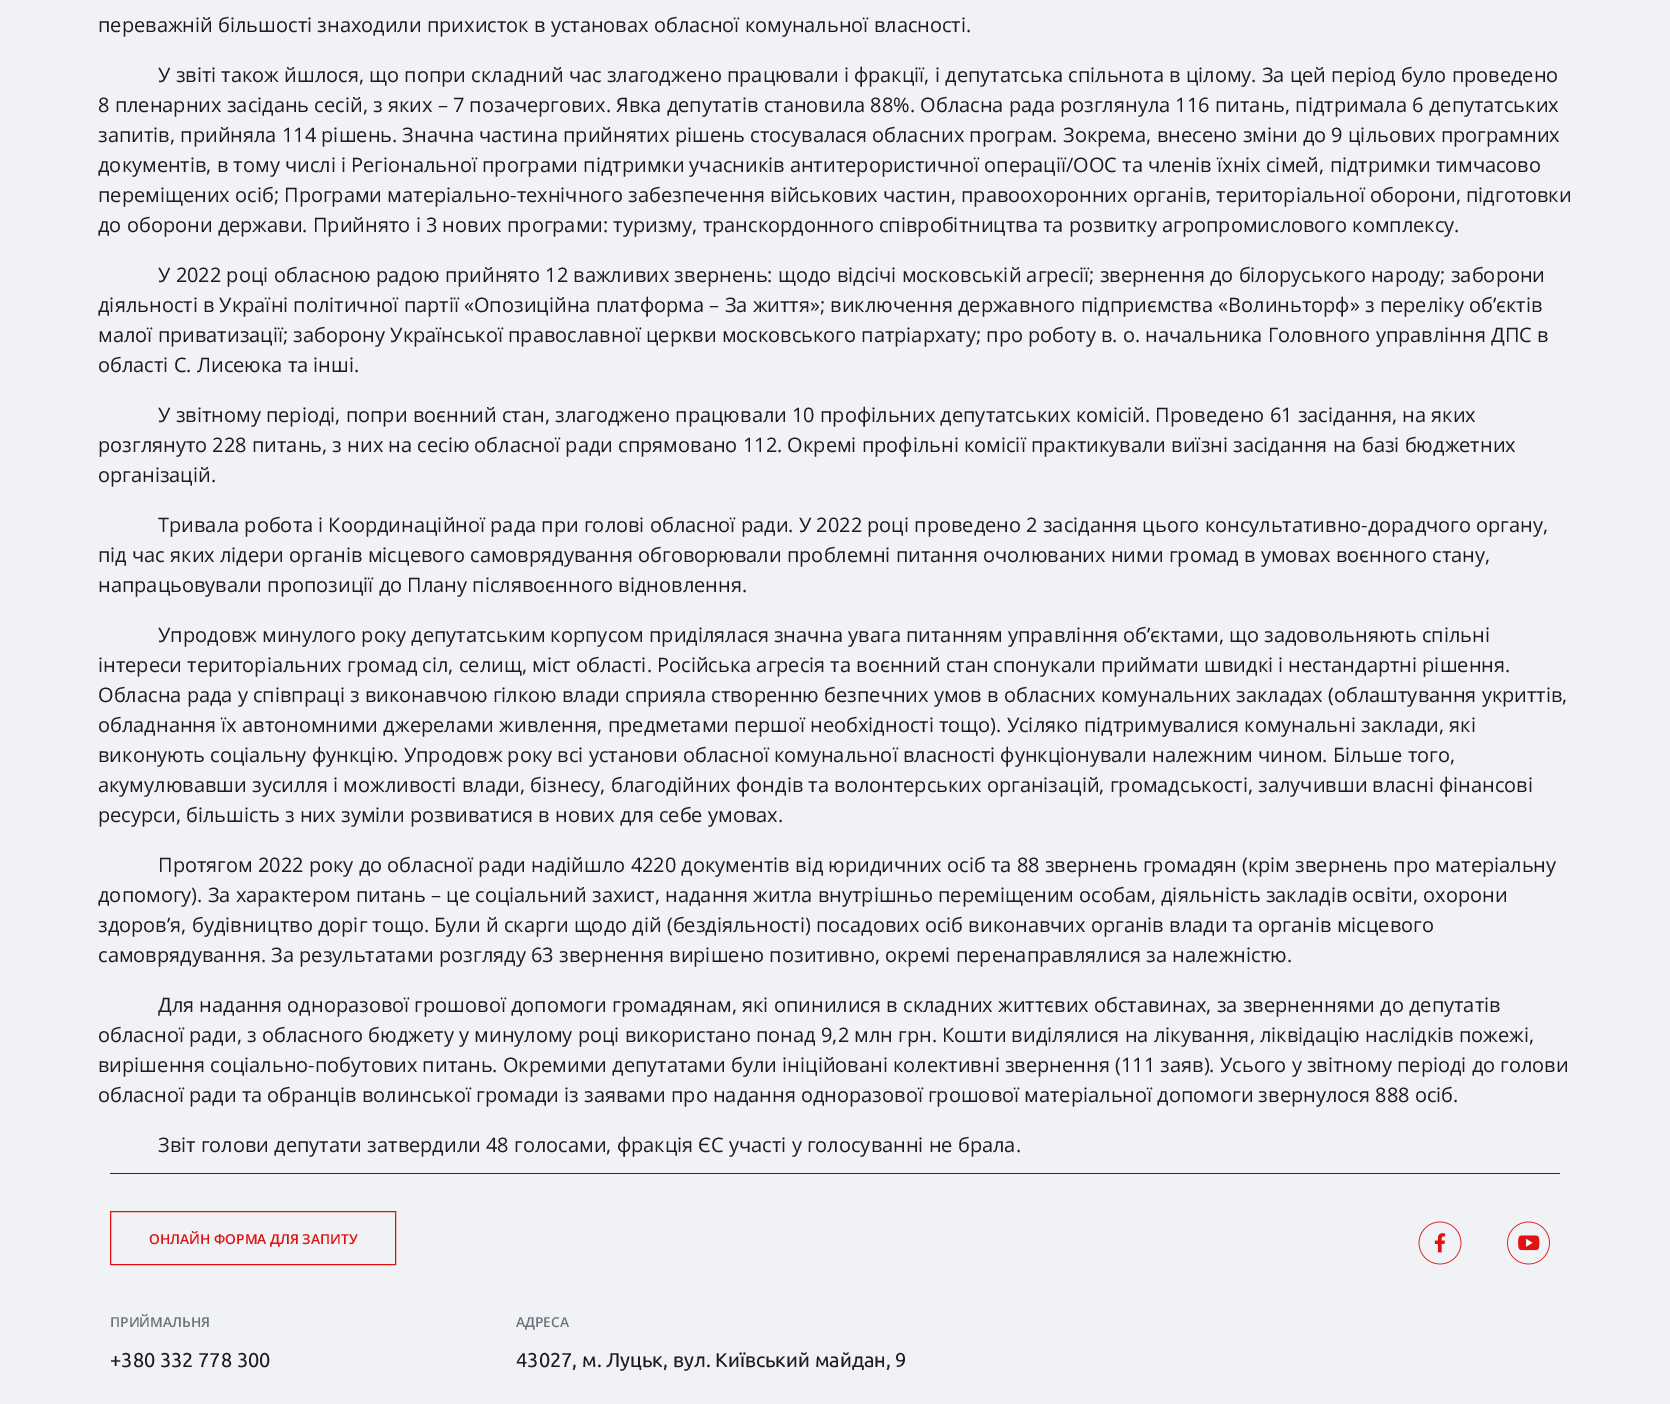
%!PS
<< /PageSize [1670 1404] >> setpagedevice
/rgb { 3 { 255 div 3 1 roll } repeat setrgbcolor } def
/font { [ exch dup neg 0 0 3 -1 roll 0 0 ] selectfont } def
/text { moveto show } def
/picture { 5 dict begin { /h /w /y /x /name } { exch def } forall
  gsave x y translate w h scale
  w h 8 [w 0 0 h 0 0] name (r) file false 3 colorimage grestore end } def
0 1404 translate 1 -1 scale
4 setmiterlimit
240 242 245 rgb
0 0 1670 1404 rectfill
46 44 44 rgb
110 1173 1450 1 rectfill
223 19 19 rgb
110.5 1211.5 285 53 rectstroke
(img_01.rgb) 1418 1221 44 44 picture
(img_02.rgb) 1507 1221 43 44 picture
/OpenSans-Regular 20 font
29 27 27 rgb
(переважній більшості знаходили прихисток в установах обласної комунальної власності.) 98 32 text
(У звіті також йшлося, що попри складний час злагоджено працювали і фракції, і депутатська спільнота в цілому. За цей період було проведено) 158 82 text
(8 пленарних засідань сесій, з яких – 7 позачергових. Явка депутатів становила 88%. Обласна рада розглянула 116 питань, підтримала 6 депутатських) 98 112 text
(запитів, прийняла 114 рішень. Значна частина прийнятих рішень стосувалася обласних програм. Зокрема, внесено зміни до 9 цільових програмних) 98 142 text
(документів, в тому числі і Регіональної програми підтримки учасників антитерористичної операції/ООС та членів їхніх сімей, підтримки тимчасово) 98 172 text
(переміщених осіб; Програми матеріально-технічного забезпечення військових частин, правоохоронних органів, територіальної оборони, підготовки) 98 202 text
(до оборони держави. Прийнято і 3 нових програми: туризму, транскордонного співробітництва та розвитку агропромислового комплексу.) 98 232 text
(У 2022 році обласною радою прийнято 12 важливих звернень: щодо відсічі московській агресії; звернення до білоруського народу; заборони) 158 282 text
(діяльності в Україні політичної партії «Опозиційна платформа – За життя»; виключення державного підприємства «Волиньторф» з переліку об’єктів) 98 312 text
(малої приватизації; заборону Української православної церкви московського патріархату; про роботу в. о. начальника Головного управління ДПС в) 98 342 text
(області С. Лисеюка та інші.) 98 372 text
(У звітному періоді, попри воєнний стан, злагоджено працювали 10 профільних депутатських комісій. Проведено 61 засідання, на яких) 158 422 text
(розглянуто 228 питань, з них на сесію обласної ради спрямовано 112. Окремі профільні комісії практикували виїзні засідання на базі бюджетних) 98 452 text
(організацій.) 98 482 text
(Тривала робота і Координаційної рада при голові обласної ради. У 2022 році проведено 2 засідання цього консультативно-дорадчого органу,) 158 532 text
(під час яких лідери органів місцевого самоврядування обговорювали проблемні питання очолюваних ними громад в умовах воєнного стану,) 98 562 text
(напрацьовували пропозиції до Плану післявоєнного відновлення.) 98 592 text
(Упродовж минулого року депутатським корпусом приділялася значна увага питанням управління об’єктами, що задовольняють спільні) 158 642 text
(інтереси територіальних громад сіл, селищ, міст області. Російська агресія та воєнний стан спонукали приймати швидкі і нестандартні рішення.) 98 672 text
(Обласна рада у співпраці з виконавчою гілкою влади сприяла створенню безпечних умов в обласних комунальних закладах \(облаштування укриттів,) 98 702 text
(обладнання їх автономними джерелами живлення, предметами першої необхідності тощо\). Усіляко підтримувалися комунальні заклади, які) 98 732 text
(виконують соціальну функцію. Упродовж року всі установи обласної комунальної власності функціонували належним чином. Більше того,) 98 762 text
(акумулювавши зусилля і можливості влади, бізнесу, благодійних фондів та волонтерських організацій, громадськості, залучивши власні фінансові) 98 792 text
(ресурси, більшість з них зуміли розвиватися в нових для себе умовах.) 98 822 text
(Протягом 2022 року до обласної ради надійшло 4220 документів від юридичних осіб та 88 звернень громадян \(крім звернень про матеріальну) 158 872 text
(допомогу\). За характером питань – це соціальний захист, надання житла внутрішньо переміщеним особам, діяльність закладів освіти, охорони) 98 902 text
(здоров’я, будівництво доріг тощо. Були й скарги щодо дій \(бездіяльності\) посадових осіб виконавчих органів влади та органів місцевого) 98 932 text
(самоврядування. За результатами розгляду 63 звернення вирішено позитивно, окремі перенаправлялися за належністю.) 98 962 text
(Для надання одноразової грошової допомоги громадянам, які опинилися в складних життєвих обставинах, за зверненнями до депутатів) 158 1012 text
(обласної ради, з обласного бюджету у минулому році використано понад 9,2 млн грн. Кошти виділялися на лікування, ліквідацію наслідків пожежі,) 98 1042 text
(вирішення соціально-побутових питань. Окремими депутатами були ініційовані колективні звернення \(111 заяв\). Усього у звітному періоді до голови) 98 1072 text
(обласної ради та обранців волинської громади із заявами про надання одноразової грошової матеріальної допомоги звернулося 888 осіб.) 98 1102 text
(Звіт голови депутати затвердили 48 голосами, фракція ЄС участі у голосуванні не брала.) 158 1152 text
/OpenSans-SemiBold 13.75 font
223 19 19 rgb
(ОНЛАЙН ФОРМА ДЛЯ ЗАПИТУ) 149 1244 text
109 114 124 rgb
(ПРИЙМАЛЬНЯ) 110 1327 text
/Ubuntu-Regular 20 font
29 27 27 rgb
(+380 332 778 300) 110 1367 text
/OpenSans-SemiBold 13.75 font
109 114 124 rgb
(АДРЕСА) 516 1327 text
/Ubuntu-Regular 20 font
29 27 27 rgb
(43027, м. Луцьк, вул. Київський майдан, 9) 516 1367 text
showpage
